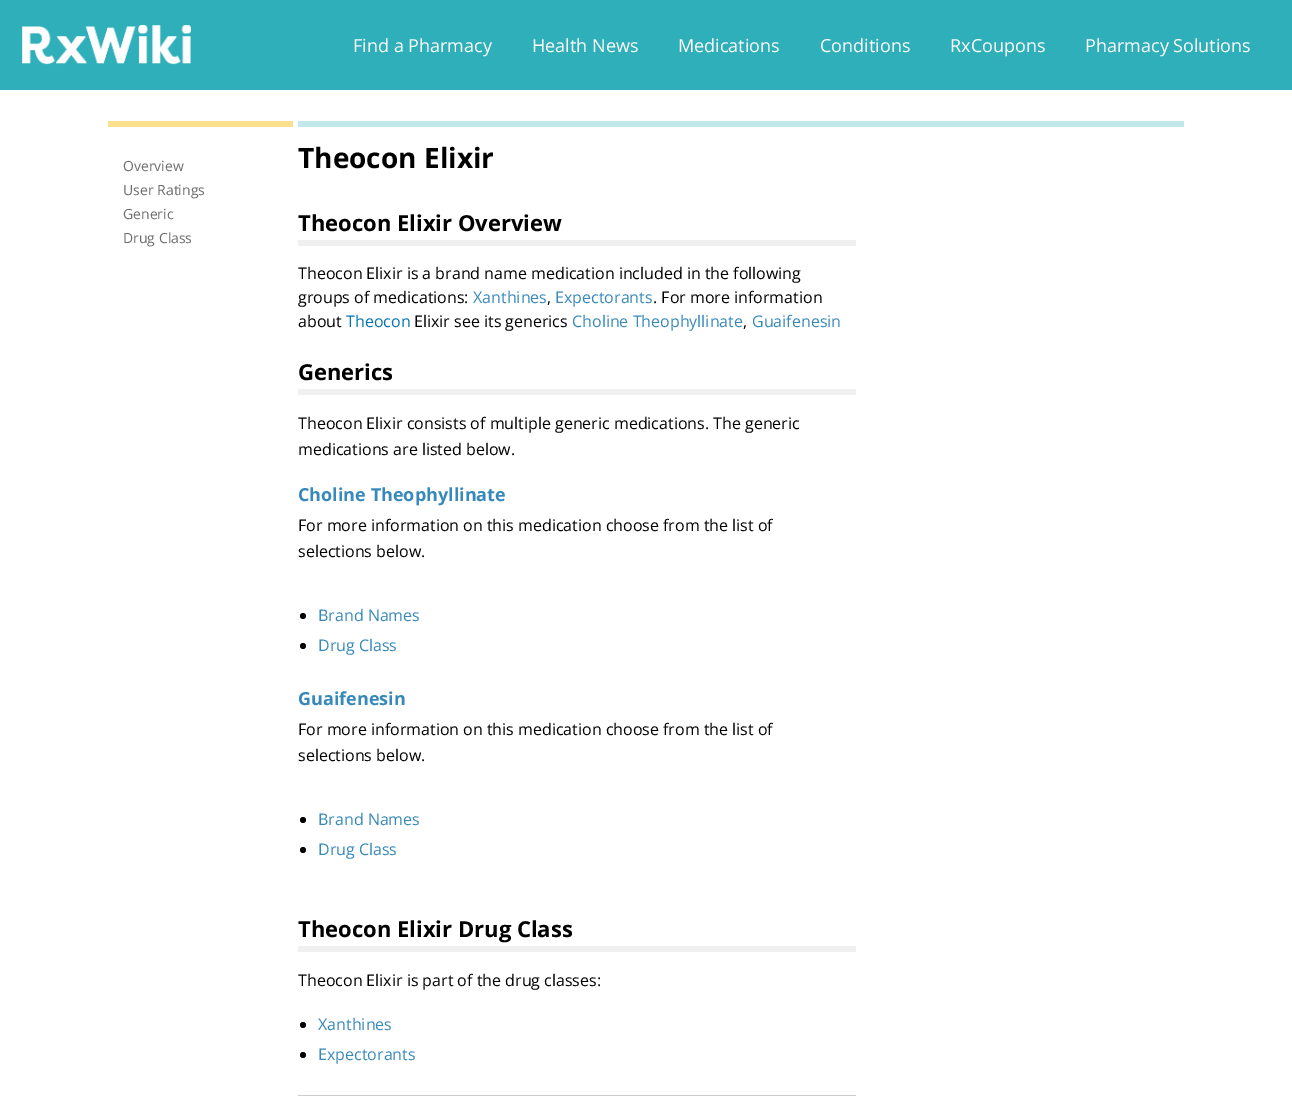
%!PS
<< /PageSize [1292 1113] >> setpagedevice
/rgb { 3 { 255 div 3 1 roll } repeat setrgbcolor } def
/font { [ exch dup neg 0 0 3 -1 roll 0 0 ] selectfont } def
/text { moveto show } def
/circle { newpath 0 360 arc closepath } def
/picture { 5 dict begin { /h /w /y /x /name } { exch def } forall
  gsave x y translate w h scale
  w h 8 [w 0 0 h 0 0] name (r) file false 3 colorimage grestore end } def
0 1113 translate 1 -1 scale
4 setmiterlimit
255 255 255 rgb
0 0 1292 1113 rectfill
47 175 185 rgb
0 0 1292 90 rectfill
(img_01.rgb) 22 25 169 40 picture
251 225 141 rgb
108 121 185 6 rectfill
194 232 235 rgb
298 121 886 6 rectfill
240 240 240 rgb
298 240 558 6 rectfill
298 389 558 6 rectfill
0 0 0 rgb
303 616 3 circle fill
303 646 3 circle fill
303 820 3 circle fill
303 850 3 circle fill
240 240 240 rgb
298 946 558 6 rectfill
0 0 0 rgb
303 1025 3 circle fill
303 1055 3 circle fill
204 204 204 rgb
298 1095 558 1 rectfill
/OpenSans-Regular 18 font
255 255 255 rgb
(Find a Pharmacy) 353 52 text
(Health News) 532 52 text
(Medications) 678 52 text
(Conditions) 820 52 text
(RxCoupons) 950 52 text
(Pharmacy Solutions) 1085 52 text
/OpenSans-Regular 14 font
108 108 108 rgb
(Overview) 123 171 text
(User Ratings) 123 195 text
(Generic) 123 219 text
(Drug Class) 123 243 text
/OpenSans-Bold 28 font
0 0 0 rgb
(Theocon Elixir) 298 168 text
/OpenSans-Bold 22 font
(Theocon Elixir Overview) 298 231 text
/OpenSans-Regular 16 font
(Theocon Elixir is a brand name medication included in the following) 298 279 text
(groups of medications:) 298 303 text
55 137 185 rgb
(Xanthines) 473 303 text
0 0 0 rgb
(,) 547 303 text
55 137 185 rgb
(Expectorants) 555 303 text
0 0 0 rgb
(. For more information) 653 303 text
(about) 298 327 text
0 115 177 rgb
(Theocon) 346 327 text
0 0 0 rgb
(Elixir see its generics) 414 327 text
55 137 185 rgb
(Choline Theophyllinate) 572 327 text
0 0 0 rgb
(,) 743 327 text
55 137 185 rgb
(Guaifenesin) 752 327 text
/OpenSans-Bold 22 font
0 0 0 rgb
(Generics) 298 380 text
/OpenSans-Regular 16 font
(Theocon Elixir consists of multiple generic medications. The generic) 298 429 text
(medications are listed below.) 298 455 text
/OpenSans-Bold 18 font
55 137 185 rgb
(Choline Theophyllinate) 298 501 text
/OpenSans-Regular 16 font
0 0 0 rgb
(For more information on this medication choose from the list of) 298 531 text
(selections below.) 298 557 text
55 137 185 rgb
(Brand Names) 318 621 text
(Drug Class) 318 651 text
/OpenSans-Bold 18 font
(Guaifenesin) 298 705 text
/OpenSans-Regular 16 font
0 0 0 rgb
(For more information on this medication choose from the list of) 298 735 text
(selections below.) 298 761 text
55 137 185 rgb
(Brand Names) 318 825 text
(Drug Class) 318 855 text
/OpenSans-Bold 22 font
0 0 0 rgb
(Theocon Elixir Drug Class) 298 937 text
/OpenSans-Regular 16 font
(Theocon Elixir is part of the drug classes:) 298 986 text
55 137 185 rgb
(Xanthines) 318 1030 text
(Expectorants) 318 1060 text
showpage
